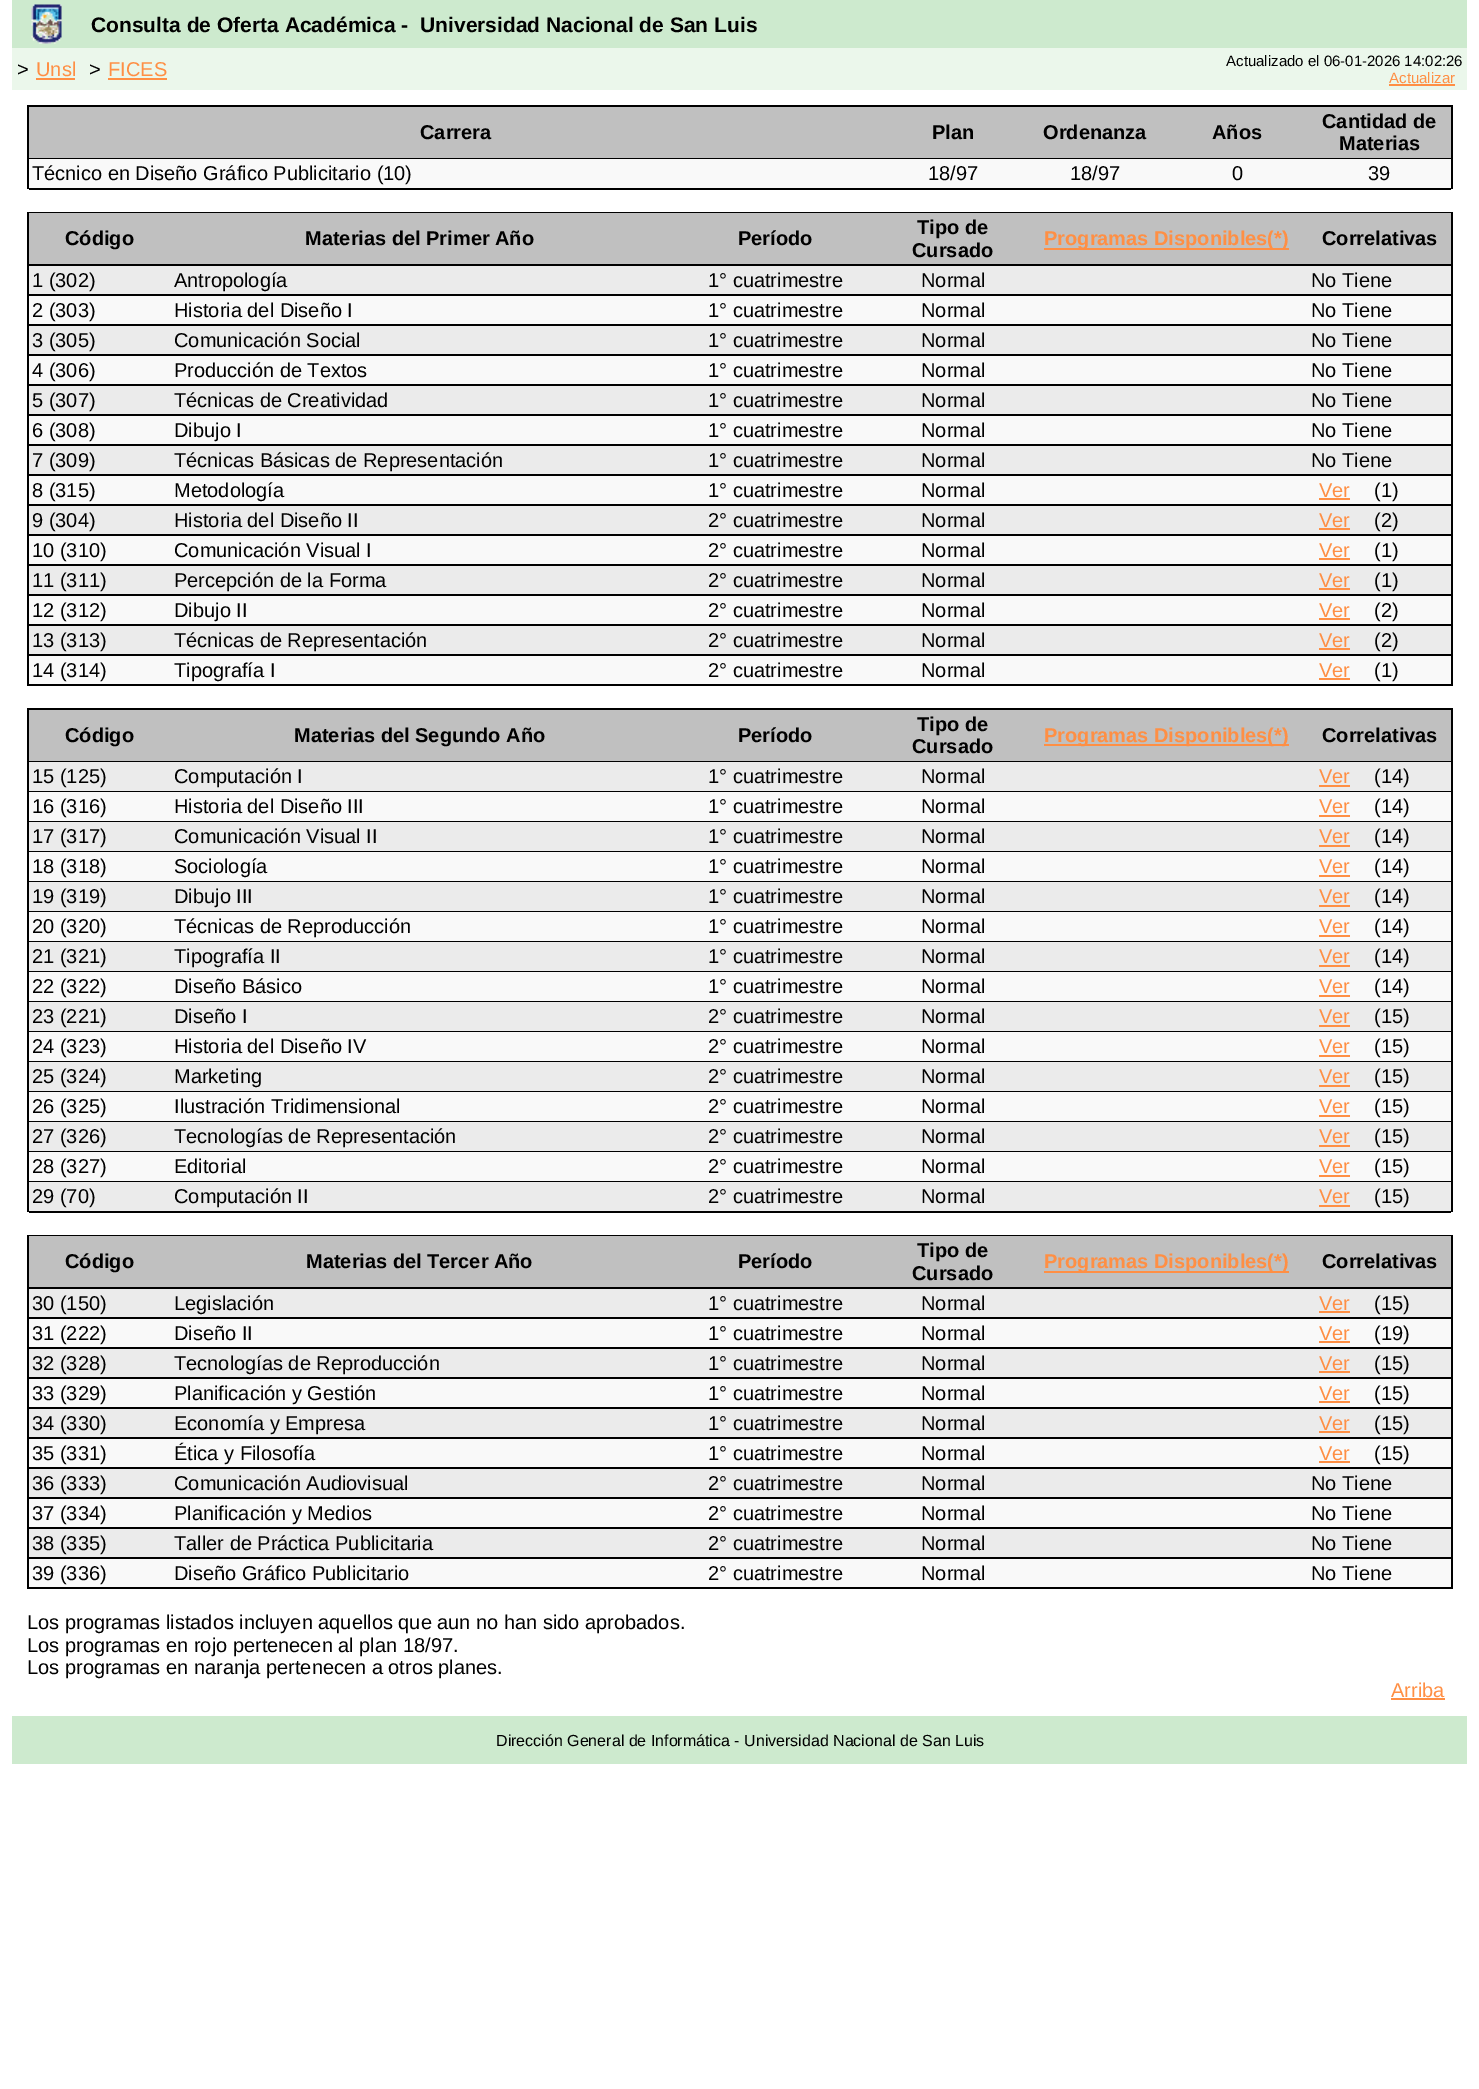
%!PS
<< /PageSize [1479 2089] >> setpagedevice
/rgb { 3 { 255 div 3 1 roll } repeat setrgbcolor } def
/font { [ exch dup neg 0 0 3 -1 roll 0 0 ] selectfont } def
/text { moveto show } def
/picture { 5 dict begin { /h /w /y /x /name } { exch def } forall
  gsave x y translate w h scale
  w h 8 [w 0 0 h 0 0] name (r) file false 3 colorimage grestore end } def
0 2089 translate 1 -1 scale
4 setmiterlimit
255 255 255 rgb
0 0 1479 2089 rectfill
205 234 206 rgb
12 0 1455 48 rectfill
(img_01.rgb) 31 4 31 40 picture
235 247 235 rgb
12 48 1455 42 rectfill
255 143 68 rgb
36 78 39 2 rectfill
108 78 59 2 rectfill
1389 84 66 2 rectfill
0 0 0 rgb
27 105 1425 2 rectfill
1451 105 2 84 rectfill
27 105 2 84 rectfill
192 192 192 rgb
29 107 1422 51 rectfill
0 0 0 rgb
29 158 1422 1 rectfill
249 249 249 rgb
29 159 1422 29 rectfill
0 0 0 rgb
29 188 1422 2 rectfill
27 212 1425 1 rectfill
1451 212 2 474 rectfill
27 212 2 474 rectfill
192 192 192 rgb
29 213 1422 51 rectfill
0 0 0 rgb
29 264 1422 2 rectfill
255 143 68 rgb
1044 248 245 2 rectfill
235 235 235 rgb
29 266 1422 28 rectfill
0 0 0 rgb
29 294 1422 2 rectfill
249 249 249 rgb
29 296 1422 28 rectfill
0 0 0 rgb
29 324 1422 2 rectfill
235 235 235 rgb
29 326 1422 28 rectfill
0 0 0 rgb
29 354 1422 2 rectfill
249 249 249 rgb
29 356 1422 28 rectfill
0 0 0 rgb
29 384 1422 2 rectfill
235 235 235 rgb
29 386 1422 28 rectfill
0 0 0 rgb
29 414 1422 2 rectfill
249 249 249 rgb
29 416 1422 28 rectfill
0 0 0 rgb
29 444 1422 2 rectfill
235 235 235 rgb
29 446 1422 28 rectfill
0 0 0 rgb
29 474 1422 2 rectfill
249 249 249 rgb
29 476 1422 28 rectfill
0 0 0 rgb
29 504 1422 2 rectfill
255 143 68 rgb
1319 498 31 2 rectfill
235 235 235 rgb
29 506 1422 28 rectfill
0 0 0 rgb
29 534 1422 2 rectfill
255 143 68 rgb
1319 528 31 2 rectfill
249 249 249 rgb
29 536 1422 28 rectfill
0 0 0 rgb
29 564 1422 2 rectfill
255 143 68 rgb
1319 558 31 2 rectfill
235 235 235 rgb
29 566 1422 28 rectfill
0 0 0 rgb
29 594 1422 2 rectfill
255 143 68 rgb
1319 588 31 2 rectfill
249 249 249 rgb
29 596 1422 28 rectfill
0 0 0 rgb
29 624 1422 2 rectfill
255 143 68 rgb
1319 618 31 2 rectfill
235 235 235 rgb
29 626 1422 28 rectfill
0 0 0 rgb
29 654 1422 2 rectfill
255 143 68 rgb
1319 648 31 2 rectfill
249 249 249 rgb
29 656 1422 28 rectfill
0 0 0 rgb
29 684 1422 2 rectfill
255 143 68 rgb
1319 678 31 2 rectfill
0 0 0 rgb
27 708 1425 2 rectfill
1451 708 2 504 rectfill
27 708 2 504 rectfill
192 192 192 rgb
29 710 1422 51 rectfill
0 0 0 rgb
29 761 1422 1 rectfill
255 143 68 rgb
1044 744 245 2 rectfill
235 235 235 rgb
29 762 1422 29 rectfill
0 0 0 rgb
29 791 1422 1 rectfill
255 143 68 rgb
1319 785 31 2 rectfill
249 249 249 rgb
29 792 1422 29 rectfill
0 0 0 rgb
29 821 1422 1 rectfill
255 143 68 rgb
1319 815 31 2 rectfill
235 235 235 rgb
29 822 1422 29 rectfill
0 0 0 rgb
29 851 1422 1 rectfill
255 143 68 rgb
1319 845 31 2 rectfill
249 249 249 rgb
29 852 1422 29 rectfill
0 0 0 rgb
29 881 1422 1 rectfill
255 143 68 rgb
1319 875 31 2 rectfill
235 235 235 rgb
29 882 1422 29 rectfill
0 0 0 rgb
29 911 1422 1 rectfill
255 143 68 rgb
1319 905 31 2 rectfill
249 249 249 rgb
29 912 1422 29 rectfill
0 0 0 rgb
29 941 1422 1 rectfill
255 143 68 rgb
1319 935 31 2 rectfill
235 235 235 rgb
29 942 1422 29 rectfill
0 0 0 rgb
29 971 1422 1 rectfill
255 143 68 rgb
1319 965 31 2 rectfill
249 249 249 rgb
29 972 1422 29 rectfill
0 0 0 rgb
29 1001 1422 1 rectfill
255 143 68 rgb
1319 995 31 2 rectfill
235 235 235 rgb
29 1002 1422 29 rectfill
0 0 0 rgb
29 1031 1422 1 rectfill
255 143 68 rgb
1319 1025 31 2 rectfill
249 249 249 rgb
29 1032 1422 29 rectfill
0 0 0 rgb
29 1061 1422 1 rectfill
255 143 68 rgb
1319 1055 31 2 rectfill
235 235 235 rgb
29 1062 1422 29 rectfill
0 0 0 rgb
29 1091 1422 1 rectfill
255 143 68 rgb
1319 1085 31 2 rectfill
249 249 249 rgb
29 1092 1422 29 rectfill
0 0 0 rgb
29 1121 1422 1 rectfill
255 143 68 rgb
1319 1115 31 2 rectfill
235 235 235 rgb
29 1122 1422 29 rectfill
0 0 0 rgb
29 1151 1422 1 rectfill
255 143 68 rgb
1319 1145 31 2 rectfill
249 249 249 rgb
29 1152 1422 29 rectfill
0 0 0 rgb
29 1181 1422 1 rectfill
255 143 68 rgb
1319 1175 31 2 rectfill
235 235 235 rgb
29 1182 1422 29 rectfill
0 0 0 rgb
29 1211 1422 2 rectfill
255 143 68 rgb
1319 1205 31 2 rectfill
0 0 0 rgb
27 1235 1425 1 rectfill
1451 1235 2 354 rectfill
27 1235 2 354 rectfill
192 192 192 rgb
29 1236 1422 51 rectfill
0 0 0 rgb
29 1287 1422 2 rectfill
255 143 68 rgb
1044 1271 245 2 rectfill
235 235 235 rgb
29 1289 1422 28 rectfill
0 0 0 rgb
29 1317 1422 2 rectfill
255 143 68 rgb
1319 1311 31 2 rectfill
249 249 249 rgb
29 1319 1422 28 rectfill
0 0 0 rgb
29 1347 1422 2 rectfill
255 143 68 rgb
1319 1341 31 2 rectfill
235 235 235 rgb
29 1349 1422 28 rectfill
0 0 0 rgb
29 1377 1422 2 rectfill
255 143 68 rgb
1319 1371 31 2 rectfill
249 249 249 rgb
29 1379 1422 28 rectfill
0 0 0 rgb
29 1407 1422 2 rectfill
255 143 68 rgb
1319 1401 31 2 rectfill
235 235 235 rgb
29 1409 1422 28 rectfill
0 0 0 rgb
29 1437 1422 2 rectfill
255 143 68 rgb
1319 1431 31 2 rectfill
249 249 249 rgb
29 1439 1422 28 rectfill
0 0 0 rgb
29 1467 1422 2 rectfill
255 143 68 rgb
1319 1461 31 2 rectfill
235 235 235 rgb
29 1469 1422 28 rectfill
0 0 0 rgb
29 1497 1422 2 rectfill
249 249 249 rgb
29 1499 1422 28 rectfill
0 0 0 rgb
29 1527 1422 2 rectfill
235 235 235 rgb
29 1529 1422 28 rectfill
0 0 0 rgb
29 1557 1422 2 rectfill
249 249 249 rgb
29 1559 1422 28 rectfill
0 0 0 rgb
29 1587 1422 2 rectfill
255 143 68 rgb
1391 1698 54 2 rectfill
205 234 206 rgb
12 1716 1455 48 rectfill
/LiberationSans-Bold 21 font
0 0 0 rgb
(Consulta de Oferta Académica -  Universidad Nacional de San Luis) 91 32 text
/LiberationSans-Regular 20 font
(>) 17 76 text
255 143 68 rgb
(Unsl) 36 76 text
0 0 0 rgb
(>) 89 76 text
255 143 68 rgb
(FICES) 108 76 text
/LiberationSans-Regular 15 font
0 0 0 rgb
(Actualizado el 06-01-2026 14:02:26) 1226 66 text
255 143 68 rgb
(Actualizar) 1389 83 text
/LiberationSans-Bold 20 font
0 0 0 rgb
(Carrera) 420 139 text
(Plan) 932 139 text
(Ordenanza) 1043 139 text
(Años) 1212 139 text
(Cantidad de) 1322 128 text
(Materias) 1339 150 text
/LiberationSans-Regular 20 font
(Técnico en Diseño Gráfico Publicitario \(10\)) 32 180 text
(18/97) 928 180 text
(18/97) 1070 180 text
(0) 1232 180 text
(39) 1368 180 text
/LiberationSans-Bold 20 font
(Código) 65 245 text
(Materias del Primer Año) 305 245 text
(Período) 738 245 text
(Tipo de) 917 234 text
(Cursado) 912 257 text
255 143 68 rgb
(Programas Disponibles\(*\)) 1044 245 text
0 0 0 rgb
(Correlativas) 1322 245 text
/LiberationSans-Regular 20 font
(1 \(302\)) 32 287 text
(Antropología) 174 287 text
(1° cuatrimestre) 708 287 text
(Normal) 921 287 text
(No Tiene) 1311 287 text
(2 \(303\)) 32 317 text
(Historia del Diseño I) 174 317 text
(1° cuatrimestre) 708 317 text
(Normal) 921 317 text
(No Tiene) 1311 317 text
(3 \(305\)) 32 347 text
(Comunicación Social) 174 347 text
(1° cuatrimestre) 708 347 text
(Normal) 921 347 text
(No Tiene) 1311 347 text
(4 \(306\)) 32 377 text
(Producción de Textos) 174 377 text
(1° cuatrimestre) 708 377 text
(Normal) 921 377 text
(No Tiene) 1311 377 text
(5 \(307\)) 32 407 text
(Técnicas de Creatividad) 174 407 text
(1° cuatrimestre) 708 407 text
(Normal) 921 407 text
(No Tiene) 1311 407 text
(6 \(308\)) 32 437 text
(Dibujo I) 174 437 text
(1° cuatrimestre) 708 437 text
(Normal) 921 437 text
(No Tiene) 1311 437 text
(7 \(309\)) 32 467 text
(Técnicas Básicas de Representación) 174 467 text
(1° cuatrimestre) 708 467 text
(Normal) 921 467 text
(No Tiene) 1311 467 text
(8 \(315\)) 32 497 text
(Metodología) 174 497 text
(1° cuatrimestre) 708 497 text
(Normal) 921 497 text
255 143 68 rgb
(Ver) 1319 497 text
0 0 0 rgb
(\(1\)) 1374 497 text
(9 \(304\)) 32 527 text
(Historia del Diseño II) 174 527 text
(2° cuatrimestre) 708 527 text
(Normal) 921 527 text
255 143 68 rgb
(Ver) 1319 527 text
0 0 0 rgb
(\(2\)) 1374 527 text
(10 \(310\)) 32 557 text
(Comunicación Visual I) 174 557 text
(2° cuatrimestre) 708 557 text
(Normal) 921 557 text
255 143 68 rgb
(Ver) 1319 557 text
0 0 0 rgb
(\(1\)) 1374 557 text
(11 \(311\)) 32 587 text
(Percepción de la Forma) 174 587 text
(2° cuatrimestre) 708 587 text
(Normal) 921 587 text
255 143 68 rgb
(Ver) 1319 587 text
0 0 0 rgb
(\(1\)) 1374 587 text
(12 \(312\)) 32 617 text
(Dibujo II) 174 617 text
(2° cuatrimestre) 708 617 text
(Normal) 921 617 text
255 143 68 rgb
(Ver) 1319 617 text
0 0 0 rgb
(\(2\)) 1374 617 text
(13 \(313\)) 32 647 text
(Técnicas de Representación) 174 647 text
(2° cuatrimestre) 708 647 text
(Normal) 921 647 text
255 143 68 rgb
(Ver) 1319 647 text
0 0 0 rgb
(\(2\)) 1374 647 text
(14 \(314\)) 32 677 text
(Tipografía I) 174 677 text
(2° cuatrimestre) 708 677 text
(Normal) 921 677 text
255 143 68 rgb
(Ver) 1319 677 text
0 0 0 rgb
(\(1\)) 1374 677 text
/LiberationSans-Bold 20 font
(Código) 65 742 text
(Materias del Segundo Año) 294 742 text
(Período) 738 742 text
(Tipo de) 917 731 text
(Cursado) 912 753 text
255 143 68 rgb
(Programas Disponibles\(*\)) 1044 742 text
0 0 0 rgb
(Correlativas) 1322 742 text
/LiberationSans-Regular 20 font
(15 \(125\)) 32 783 text
(Computación I) 174 783 text
(1° cuatrimestre) 708 783 text
(Normal) 921 783 text
255 143 68 rgb
(Ver) 1319 783 text
0 0 0 rgb
(\(14\)) 1374 783 text
(16 \(316\)) 32 813 text
(Historia del Diseño III) 174 813 text
(1° cuatrimestre) 708 813 text
(Normal) 921 813 text
255 143 68 rgb
(Ver) 1319 813 text
0 0 0 rgb
(\(14\)) 1374 813 text
(17 \(317\)) 32 843 text
(Comunicación Visual II) 174 843 text
(1° cuatrimestre) 708 843 text
(Normal) 921 843 text
255 143 68 rgb
(Ver) 1319 843 text
0 0 0 rgb
(\(14\)) 1374 843 text
(18 \(318\)) 32 873 text
(Sociología) 174 873 text
(1° cuatrimestre) 708 873 text
(Normal) 921 873 text
255 143 68 rgb
(Ver) 1319 873 text
0 0 0 rgb
(\(14\)) 1374 873 text
(19 \(319\)) 32 903 text
(Dibujo III) 174 903 text
(1° cuatrimestre) 708 903 text
(Normal) 921 903 text
255 143 68 rgb
(Ver) 1319 903 text
0 0 0 rgb
(\(14\)) 1374 903 text
(20 \(320\)) 32 933 text
(Técnicas de Reproducción) 174 933 text
(1° cuatrimestre) 708 933 text
(Normal) 921 933 text
255 143 68 rgb
(Ver) 1319 933 text
0 0 0 rgb
(\(14\)) 1374 933 text
(21 \(321\)) 32 963 text
(Tipografía II) 174 963 text
(1° cuatrimestre) 708 963 text
(Normal) 921 963 text
255 143 68 rgb
(Ver) 1319 963 text
0 0 0 rgb
(\(14\)) 1374 963 text
(22 \(322\)) 32 993 text
(Diseño Básico) 174 993 text
(1° cuatrimestre) 708 993 text
(Normal) 921 993 text
255 143 68 rgb
(Ver) 1319 993 text
0 0 0 rgb
(\(14\)) 1374 993 text
(23 \(221\)) 32 1023 text
(Diseño I) 174 1023 text
(2° cuatrimestre) 708 1023 text
(Normal) 921 1023 text
255 143 68 rgb
(Ver) 1319 1023 text
0 0 0 rgb
(\(15\)) 1374 1023 text
(24 \(323\)) 32 1053 text
(Historia del Diseño IV) 174 1053 text
(2° cuatrimestre) 708 1053 text
(Normal) 921 1053 text
255 143 68 rgb
(Ver) 1319 1053 text
0 0 0 rgb
(\(15\)) 1374 1053 text
(25 \(324\)) 32 1083 text
(Marketing) 174 1083 text
(2° cuatrimestre) 708 1083 text
(Normal) 921 1083 text
255 143 68 rgb
(Ver) 1319 1083 text
0 0 0 rgb
(\(15\)) 1374 1083 text
(26 \(325\)) 32 1113 text
(Ilustración Tridimensional) 174 1113 text
(2° cuatrimestre) 708 1113 text
(Normal) 921 1113 text
255 143 68 rgb
(Ver) 1319 1113 text
0 0 0 rgb
(\(15\)) 1374 1113 text
(27 \(326\)) 32 1143 text
(Tecnologías de Representación) 174 1143 text
(2° cuatrimestre) 708 1143 text
(Normal) 921 1143 text
255 143 68 rgb
(Ver) 1319 1143 text
0 0 0 rgb
(\(15\)) 1374 1143 text
(28 \(327\)) 32 1173 text
(Editorial) 174 1173 text
(2° cuatrimestre) 708 1173 text
(Normal) 921 1173 text
255 143 68 rgb
(Ver) 1319 1173 text
0 0 0 rgb
(\(15\)) 1374 1173 text
(29 \(70\)) 32 1203 text
(Computación II) 174 1203 text
(2° cuatrimestre) 708 1203 text
(Normal) 921 1203 text
255 143 68 rgb
(Ver) 1319 1203 text
0 0 0 rgb
(\(15\)) 1374 1203 text
/LiberationSans-Bold 20 font
(Código) 65 1268 text
(Materias del Tercer Año) 306 1268 text
(Período) 738 1268 text
(Tipo de) 917 1257 text
(Cursado) 912 1280 text
255 143 68 rgb
(Programas Disponibles\(*\)) 1044 1268 text
0 0 0 rgb
(Correlativas) 1322 1268 text
/LiberationSans-Regular 20 font
(30 \(150\)) 32 1310 text
(Legislación) 174 1310 text
(1° cuatrimestre) 708 1310 text
(Normal) 921 1310 text
255 143 68 rgb
(Ver) 1319 1310 text
0 0 0 rgb
(\(15\)) 1374 1310 text
(31 \(222\)) 32 1340 text
(Diseño II) 174 1340 text
(1° cuatrimestre) 708 1340 text
(Normal) 921 1340 text
255 143 68 rgb
(Ver) 1319 1340 text
0 0 0 rgb
(\(19\)) 1374 1340 text
(32 \(328\)) 32 1370 text
(Tecnologías de Reproducción) 174 1370 text
(1° cuatrimestre) 708 1370 text
(Normal) 921 1370 text
255 143 68 rgb
(Ver) 1319 1370 text
0 0 0 rgb
(\(15\)) 1374 1370 text
(33 \(329\)) 32 1400 text
(Planificación y Gestión) 174 1400 text
(1° cuatrimestre) 708 1400 text
(Normal) 921 1400 text
255 143 68 rgb
(Ver) 1319 1400 text
0 0 0 rgb
(\(15\)) 1374 1400 text
(34 \(330\)) 32 1430 text
(Economía y Empresa) 174 1430 text
(1° cuatrimestre) 708 1430 text
(Normal) 921 1430 text
255 143 68 rgb
(Ver) 1319 1430 text
0 0 0 rgb
(\(15\)) 1374 1430 text
(35 \(331\)) 32 1460 text
(Ética y Filosofía) 174 1460 text
(1° cuatrimestre) 708 1460 text
(Normal) 921 1460 text
255 143 68 rgb
(Ver) 1319 1460 text
0 0 0 rgb
(\(15\)) 1374 1460 text
(36 \(333\)) 32 1490 text
(Comunicación Audiovisual) 174 1490 text
(2° cuatrimestre) 708 1490 text
(Normal) 921 1490 text
(No Tiene) 1311 1490 text
(37 \(334\)) 32 1520 text
(Planificación y Medios) 174 1520 text
(2° cuatrimestre) 708 1520 text
(Normal) 921 1520 text
(No Tiene) 1311 1520 text
(38 \(335\)) 32 1550 text
(Taller de Práctica Publicitaria) 174 1550 text
(2° cuatrimestre) 708 1550 text
(Normal) 921 1550 text
(No Tiene) 1311 1550 text
(39 \(336\)) 32 1580 text
(Diseño Gráfico Publicitario) 174 1580 text
(2° cuatrimestre) 708 1580 text
(Normal) 921 1580 text
(No Tiene) 1311 1580 text
(Los programas listados incluyen aquellos que aun no han sido aprobados.) 27 1629 text
(Los programas en rojo pertenecen al plan 18/97.) 27 1652 text
(Los programas en naranja pertenecen a otros planes.) 27 1674 text
255 143 68 rgb
(Arriba) 1391 1697 text
/LiberationSans-Regular 16 font
0 0 0 rgb
(Dirección General de Informática - Universidad Nacional de San Luis) 496 1746 text
showpage
